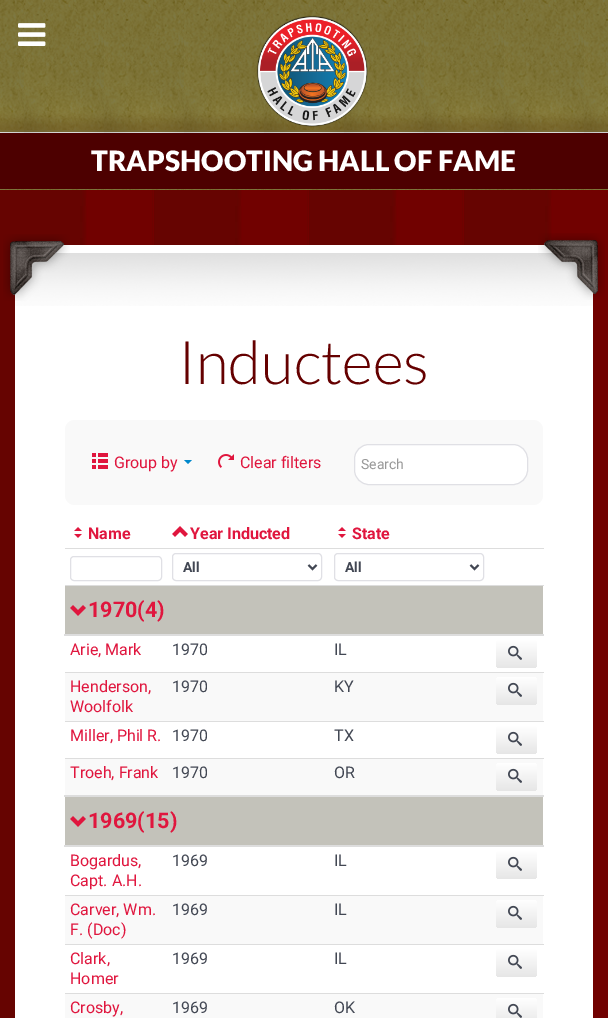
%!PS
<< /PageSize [608 1018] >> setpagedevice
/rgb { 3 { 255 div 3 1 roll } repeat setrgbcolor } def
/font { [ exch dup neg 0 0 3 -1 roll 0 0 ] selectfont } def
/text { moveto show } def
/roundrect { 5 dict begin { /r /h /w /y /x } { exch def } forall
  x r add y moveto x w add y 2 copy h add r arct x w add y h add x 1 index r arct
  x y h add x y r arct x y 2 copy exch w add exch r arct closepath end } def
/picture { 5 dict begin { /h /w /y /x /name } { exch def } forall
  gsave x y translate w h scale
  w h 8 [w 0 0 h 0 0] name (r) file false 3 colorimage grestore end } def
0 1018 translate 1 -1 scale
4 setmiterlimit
255 255 255 rgb
0 0 608 1018 rectfill
(img_02.rgb) 0 0 608 190 picture
(img_01.rgb) 18 23 28 23 picture
(img_03.rgb) 256 15 112 112 picture
77 0 0 rgb
0 133 608 56 rectfill
(img_04.rgb) 0 190 608 828 picture
255 255 255 rgb
15 245 578 773 rectfill
(img_05.rgb) 15 253 578 53 picture
(img_06.rgb) 3 234 67 67 picture
(img_07.rgb) 538 233 67 67 picture
249 249 249 rgb
65 420 478 85 10 roundrect fill
(img_08.rgb) 92 453 16 16 picture
0 136 204 rgb
184 460 moveto 8 0 rlineto -4 4 rlineto closepath fill
(img_09.rgb) 218 454 16 14 picture
255 255 255 rgb
354.5 444.5 173 40 14.5 roundrect gsave fill grestore
224 224 229 rgb
stroke
(img_10.rgb) 74 527 8 11 picture
(img_11.rgb) 172 526 16 11 picture
(img_10.rgb) 338 527 8 11 picture
221 221 221 rgb
65 548 479 1 rectfill
224 224 229 rgb
70.5 556.5 91 24 3.5 roundrect stroke
172.5 553.5 149 27 3.5 roundrect stroke
66 71 83 rgb
2 setlinewidth
308.5 565 moveto 4 4 rlineto 4 -4 rlineto stroke
224 224 229 rgb
1 setlinewidth
334.5 553.5 149 27 3.5 roundrect stroke
66 71 83 rgb
2 setlinewidth
470.5 565 moveto 4 4 rlineto 4 -4 rlineto stroke
195 194 186 rgb
65 586 478 48 rectfill
221 221 221 rgb
65 585 479 1 rectfill
(img_12.rgb) 70 605 16 11 picture
64 634 480 2 rectfill
gsave 496 640 41 28 4 roundrect clip newpath
<< /ShadingType 2 /ColorSpace /DeviceRGB /Coords [517 640 517 668] /Extend [true true] /Function << /FunctionType 2 /Domain [0 1] /C0 [1 1 1] /C1 [0.902 0.902 0.902] /N 1 >> >> shfill grestore
(img_13.rgb) 508 645 14 15 picture
65 672 479 1 rectfill
249 249 249 rgb
65 673 478 48 rectfill
gsave 496 677 41 28 4 roundrect clip newpath
<< /ShadingType 2 /ColorSpace /DeviceRGB /Coords [517 677 517 705] /Extend [true true] /Function << /FunctionType 2 /Domain [0 1] /C0 [1 1 1] /C1 [0.902 0.902 0.902] /N 1 >> >> shfill grestore
(img_13.rgb) 508 682 14 15 picture
221 221 221 rgb
65 721 479 1 rectfill
gsave 496 726 41 28 4 roundrect clip newpath
<< /ShadingType 2 /ColorSpace /DeviceRGB /Coords [517 726 517 754] /Extend [true true] /Function << /FunctionType 2 /Domain [0 1] /C0 [1 1 1] /C1 [0.902 0.902 0.902] /N 1 >> >> shfill grestore
(img_13.rgb) 508 731 14 15 picture
65 758 479 1 rectfill
249 249 249 rgb
65 759 478 36 rectfill
gsave 496 763 41 28 4 roundrect clip newpath
<< /ShadingType 2 /ColorSpace /DeviceRGB /Coords [517 763 517 791] /Extend [true true] /Function << /FunctionType 2 /Domain [0 1] /C0 [1 1 1] /C1 [0.902 0.902 0.902] /N 1 >> >> shfill grestore
(img_13.rgb) 508 768 14 15 picture
221 221 221 rgb
64 795 480 2 rectfill
195 194 186 rgb
65 797 478 48 rectfill
(img_12.rgb) 70 816 16 11 picture
221 221 221 rgb
64 845 480 2 rectfill
gsave 496 851 41 28 4 roundrect clip newpath
<< /ShadingType 2 /ColorSpace /DeviceRGB /Coords [517 851 517 879] /Extend [true true] /Function << /FunctionType 2 /Domain [0 1] /C0 [1 1 1] /C1 [0.902 0.902 0.902] /N 1 >> >> shfill grestore
(img_13.rgb) 508 856 14 15 picture
65 895 479 1 rectfill
249 249 249 rgb
65 896 478 48 rectfill
gsave 496 900 41 28 4 roundrect clip newpath
<< /ShadingType 2 /ColorSpace /DeviceRGB /Coords [517 900 517 928] /Extend [true true] /Function << /FunctionType 2 /Domain [0 1] /C0 [1 1 1] /C1 [0.902 0.902 0.902] /N 1 >> >> shfill grestore
(img_13.rgb) 508 905 14 15 picture
221 221 221 rgb
65 944 479 1 rectfill
gsave 496 949 41 28 4 roundrect clip newpath
<< /ShadingType 2 /ColorSpace /DeviceRGB /Coords [517 949 517 977] /Extend [true true] /Function << /FunctionType 2 /Domain [0 1] /C0 [1 1 1] /C1 [0.902 0.902 0.902] /N 1 >> >> shfill grestore
(img_13.rgb) 508 954 14 15 picture
65 993 479 1 rectfill
249 249 249 rgb
65 994 478 24 rectfill
gsave 496 998 41 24 4 roundrect clip newpath
<< /ShadingType 2 /ColorSpace /DeviceRGB /Coords [517 998 517 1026] /Extend [true true] /Function << /FunctionType 2 /Domain [0 1] /C0 [1 1 1] /C1 [0.902 0.902 0.902] /N 1 >> >> shfill grestore
(img_13.rgb) 508 1003 14 15 picture
/Lato-Black 28 font
255 255 255 rgb
(TRAPSHOOTING HALL OF FAME) 91 171 text
/Lato-Light 60 font
101 0 0 rgb
(Inductees) 178 384 text
/Roboto-Regular 16 font
224 22 62 rgb
(Group by) 114 468 text
(Clear filters) 240 468 text
/Roboto-Regular 14 font
153 153 153 rgb
(Search) 361 469 text
/Roboto-Bold 16 font
224 22 62 rgb
(Name) 88 539 text
(Year Inducted) 190 539 text
(State) 352 539 text
/Roboto-Bold 14 font
66 71 83 rgb
(All) 183 572 text
(All) 345 572 text
/Roboto-Bold 21.5 font
224 22 62 rgb
(1970\(4\)) 88 617 text
/Roboto-Regular 16 font
(Arie, Mark) 70 655 text
66 71 83 rgb
(1970) 172 655 text
(IL) 334 655 text
224 22 62 rgb
(Henderson,) 70 692 text
(Woolfolk) 70 712 text
66 71 83 rgb
(1970) 172 692 text
(KY) 334 692 text
224 22 62 rgb
(Miller, Phil R.) 70 741 text
66 71 83 rgb
(1970) 172 741 text
(TX) 334 741 text
224 22 62 rgb
(Troeh, Frank) 70 778 text
66 71 83 rgb
(1970) 172 778 text
(OR) 334 778 text
/Roboto-Bold 21.5 font
224 22 62 rgb
(1969\(15\)) 88 828 text
/Roboto-Regular 16 font
(Bogardus,) 70 866 text
(Capt. A.H.) 70 886 text
66 71 83 rgb
(1969) 172 866 text
(IL) 334 866 text
224 22 62 rgb
(Carver, Wm.) 70 915 text
(F. \(Doc\)) 70 935 text
66 71 83 rgb
(1969) 172 915 text
(IL) 334 915 text
224 22 62 rgb
(Clark,) 70 964 text
(Homer) 70 984 text
66 71 83 rgb
(1969) 172 964 text
(IL) 334 964 text
224 22 62 rgb
(Crosby,) 70 1013 text
66 71 83 rgb
(1969) 172 1013 text
(OK) 334 1013 text
showpage
